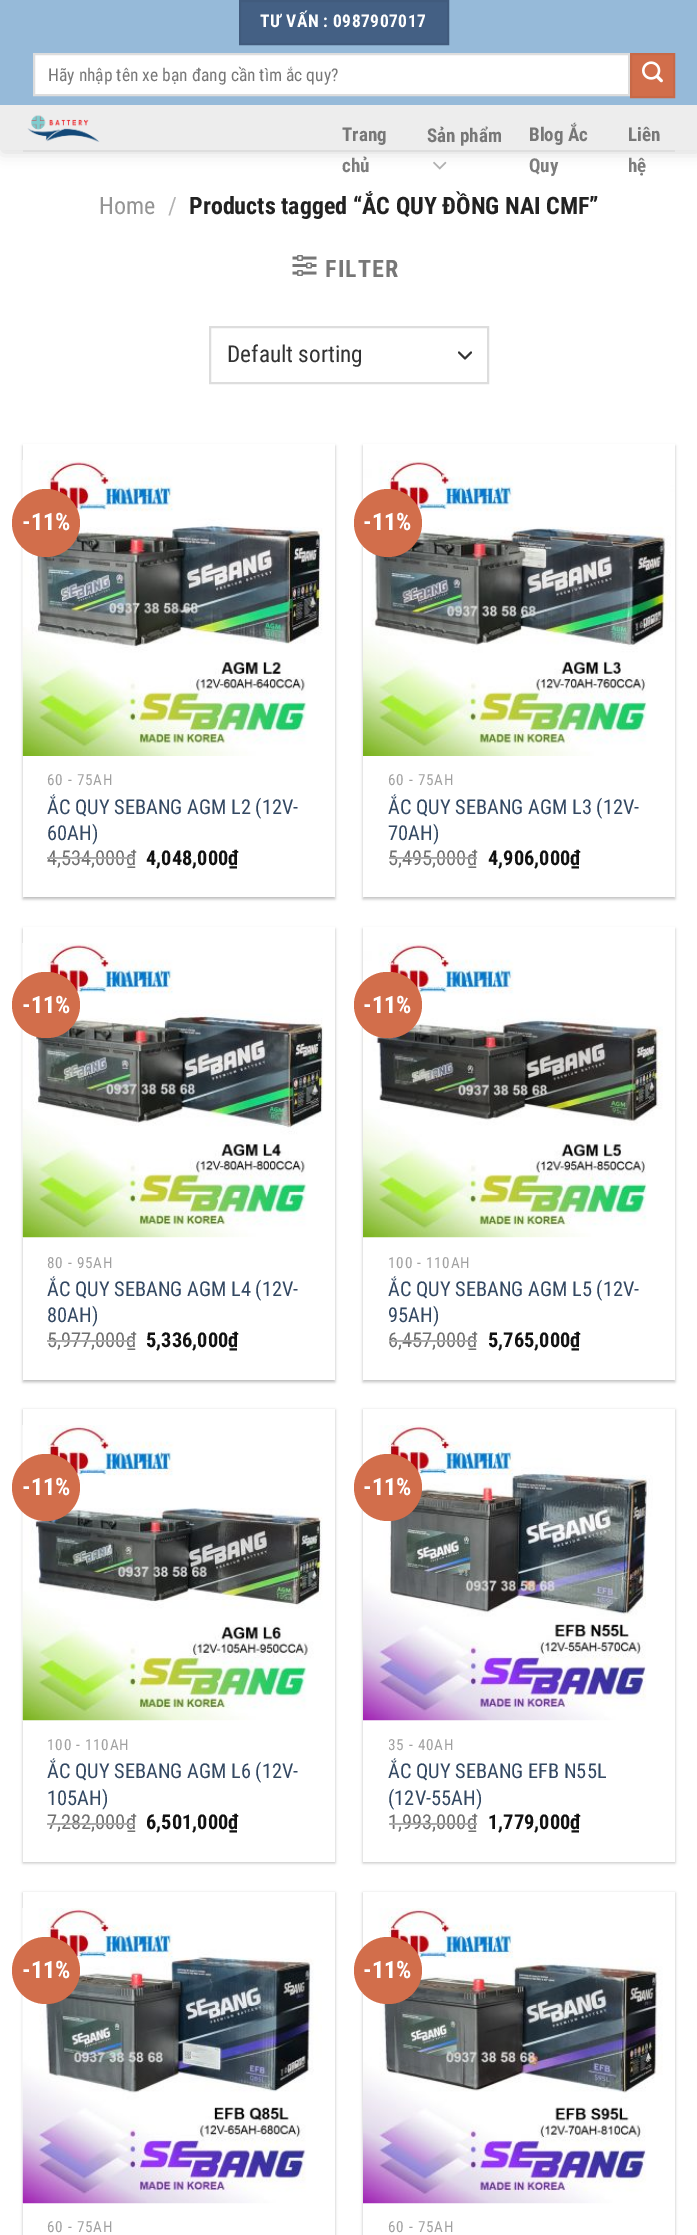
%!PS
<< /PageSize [697 2235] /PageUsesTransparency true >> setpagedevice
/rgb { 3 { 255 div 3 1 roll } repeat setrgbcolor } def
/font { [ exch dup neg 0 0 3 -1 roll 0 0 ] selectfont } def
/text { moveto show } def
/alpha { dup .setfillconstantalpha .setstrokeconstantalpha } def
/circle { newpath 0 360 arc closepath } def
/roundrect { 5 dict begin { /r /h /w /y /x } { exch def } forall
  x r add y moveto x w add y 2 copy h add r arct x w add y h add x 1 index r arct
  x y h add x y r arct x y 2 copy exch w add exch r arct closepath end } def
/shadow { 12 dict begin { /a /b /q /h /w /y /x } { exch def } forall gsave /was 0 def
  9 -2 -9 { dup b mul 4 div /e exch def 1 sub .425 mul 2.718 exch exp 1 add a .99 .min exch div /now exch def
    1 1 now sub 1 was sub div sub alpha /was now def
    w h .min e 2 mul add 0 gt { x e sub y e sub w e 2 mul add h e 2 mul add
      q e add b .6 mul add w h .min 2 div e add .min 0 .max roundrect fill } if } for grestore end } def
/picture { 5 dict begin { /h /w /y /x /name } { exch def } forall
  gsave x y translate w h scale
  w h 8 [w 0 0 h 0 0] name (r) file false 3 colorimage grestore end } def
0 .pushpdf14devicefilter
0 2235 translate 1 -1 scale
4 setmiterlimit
255 255 255 rgb
0 0 697 2235 rectfill
0 0 0 rgb
2 2 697 150 0 7.5 0.15 shadow
150 186 217 rgb
0 0 697 105 rectfill
68 96 132 rgb
240 1 moveto 208 0 rlineto 0 43 rlineto -208 0 rlineto closepath gsave fill grestore
65 91 125 rgb
2 setlinewidth
stroke
255 255 255 rgb
34 54 moveto 595 0 rlineto 0 41 rlineto -595 0 rlineto closepath gsave fill grestore
221 221 221 rgb
stroke
210 110 75 rgb
631 54 moveto 43 0 rlineto 0 43 rlineto -43 0 rlineto closepath gsave fill grestore
200 105 71 rgb
stroke
(img_01.rgb) 642 61 21 22 picture
237 237 237 rgb
0 105 697 45 rectfill
(img_02.rgb) 27 115 73 27 picture
(img_03.rgb) 433 161 14 9 picture
222 222 222 rgb
23 150 652 2 rectfill
(img_04.rgb) 292 255 25 21 picture
51 51 51 rgb
1 setlinecap
1 setlinejoin
459 352.5 moveto 6 6 rlineto 6 -6 rlineto stroke
221 221 221 rgb
0 setlinecap
0 setlinejoin
210 327 278 56 rectstroke
0 0 0 rgb
23 446 312 453 0 1.5 0.24 shadow
26 449 306 447 0 2 0.12 shadow
255 255 255 rgb
23 444 312 453 rectfill
(img_05.rgb) 22 460 301 296 picture
210 110 75 rgb
46 523 34 circle fill
gsave
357 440 moveto 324 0 rlineto 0 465 rlineto -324 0 rlineto closepath 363 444 moveto 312 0 rlineto 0 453 rlineto -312 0 rlineto closepath eoclip newpath
0 0 0 rgb
363 446 312 453 0 1.5 0.24 shadow
grestore
(img_06.rgb) 363 460 312 296 picture
388 523 34 circle fill
0 0 0 rgb
23 929 312 453 0 1.5 0.24 shadow
26 932 306 447 0 2 0.12 shadow
255 255 255 rgb
23 927 312 453 rectfill
(img_07.rgb) 22 943 302 295 picture
210 110 75 rgb
12 972 68 66 33 roundrect fill
gsave
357 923 moveto 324 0 rlineto 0 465 rlineto -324 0 rlineto closepath 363 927 moveto 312 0 rlineto 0 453 rlineto -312 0 rlineto closepath eoclip newpath
0 0 0 rgb
363 929 312 453 0 1.5 0.24 shadow
grestore
(img_08.rgb) 363 943 300 295 picture
354 972 68 66 33 roundrect fill
0 0 0 rgb
23 1410 312 453 0 1.5 0.24 shadow
255 255 255 rgb
23 1409 312 453 rectfill
(img_09.rgb) 22 1425 301 296 picture
210 110 75 rgb
12 1454 68 67 33.5 roundrect fill
0 0 0 rgb
363 1410 312 453 0 1.5 0.24 shadow
255 255 255 rgb
363 1409 312 453 rectfill
(img_10.rgb) 363 1425 290 296 picture
210 110 75 rgb
354 1454 68 67 33.5 roundrect fill
0 0 0 rgb
23 1893 312 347 0 1.5 0.24 shadow
255 255 255 rgb
23 1892 312 343 rectfill
(img_11.rgb) 22 1908 300 296 picture
210 110 75 rgb
12 1937 68 67 33.5 roundrect fill
gsave
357 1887 moveto 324 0 rlineto 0 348 rlineto -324 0 rlineto closepath 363 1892 moveto 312 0 rlineto 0 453 rlineto -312 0 rlineto closepath eoclip newpath
0 0 0 rgb
363 1893 312 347 0 1.5 0.24 shadow
grestore
(img_12.rgb) 363 1908 300 296 picture
354 1937 68 67 33.5 roundrect fill
/RobotoCondensed-Bold 17.5 font
255 255 255 rgb
260 27 moveto 0.5 0 (TƯ VẤN : 0987907017) ashow
/RobotoCondensed-Regular 17.5 font
119 119 119 rgb
(Hãy nhập tên xe bạn đang cần tìm ắc quy?) 48 81 text
/RobotoCondensed-Bold 19 font
(Trang) 342 141 text
125 125 125 rgb
(chủ) 342 172 text
119 119 119 rgb
(Sản phẩm) 427 142 text
(Blog Ắc) 529 141 text
125 125 125 rgb
(Quy) 529 172 text
119 119 119 rgb
(Liên) 628 141 text
125 125 125 rgb
(hệ) 628 172 text
/RobotoCondensed-Regular 24 font
148 148 148 rgb
(Home) 99 214 text
178 178 178 rgb
(/) 168 214 text
/RobotoCondensed-Bold 24 font
34 34 34 rgb
(Products tagged “ẮC QUY ĐỒNG NAI CMF”) 189 214 text
119 119 119 rgb
325 277 moveto 1.25 0 (FILTER) ashow
/RobotoCondensed-Regular 23.25 font
51 51 51 rgb
(Default sorting) 227 362 text
/RobotoCondensed-Bold 24 font
255 255 255 rgb
(-11%) 22 530 text
/RobotoCondensed-Regular 15.25 font
160 160 160 rgb
47 785 moveto 0.75 0 (60 - 75AH) ashow
/RobotoCondensed-Regular 20.4 font
51 72 98 rgb
(ẮC QUY SEBANG AGM L2 \(12V-) 47 814 text
(60AH\)) 47 840 text
112 112 112 rgb
(4,534,000₫) 47 865 text
173 173 173 rgb
47 857 88 2 rectfill
/RobotoCondensed-Bold 20.4 font
17 17 17 rgb
(4,048,000₫) 146 865 text
/RobotoCondensed-Bold 24 font
255 255 255 rgb
(-11%) 363 530 text
/RobotoCondensed-Regular 15.25 font
160 160 160 rgb
388 785 moveto 0.75 0 (60 - 75AH) ashow
/RobotoCondensed-Regular 20.4 font
51 72 98 rgb
(ẮC QUY SEBANG AGM L3 \(12V-) 388 814 text
(70AH\)) 388 840 text
112 112 112 rgb
(5,495,000₫) 388 865 text
173 173 173 rgb
389 857 88 2 rectfill
/RobotoCondensed-Bold 20.4 font
17 17 17 rgb
(4,906,000₫) 488 865 text
/RobotoCondensed-Bold 24 font
255 255 255 rgb
(-11%) 22 1013 text
/RobotoCondensed-Regular 15.25 font
160 160 160 rgb
47 1268 moveto 0.75 0 (80 - 95AH) ashow
/RobotoCondensed-Regular 20.4 font
51 72 98 rgb
(ẮC QUY SEBANG AGM L4 \(12V-) 47 1296 text
(80AH\)) 47 1322 text
112 112 112 rgb
(5,977,000₫) 47 1347 text
173 173 173 rgb
47 1340 88 2 rectfill
/RobotoCondensed-Bold 20.4 font
17 17 17 rgb
(5,336,000₫) 146 1347 text
/RobotoCondensed-Bold 24 font
255 255 255 rgb
(-11%) 363 1013 text
/RobotoCondensed-Regular 15.25 font
160 160 160 rgb
388 1268 moveto 0.75 0 (100 - 110AH) ashow
/RobotoCondensed-Regular 20.4 font
51 72 98 rgb
(ẮC QUY SEBANG AGM L5 \(12V-) 388 1296 text
(95AH\)) 388 1322 text
112 112 112 rgb
(6,457,000₫) 388 1347 text
173 173 173 rgb
389 1340 88 2 rectfill
/RobotoCondensed-Bold 20.4 font
17 17 17 rgb
(5,765,000₫) 488 1347 text
/RobotoCondensed-Bold 24 font
255 255 255 rgb
(-11%) 22 1495 text
/RobotoCondensed-Regular 15.25 font
160 160 160 rgb
47 1750 moveto 0.75 0 (100 - 110AH) ashow
/RobotoCondensed-Regular 20.4 font
51 72 98 rgb
(ẮC QUY SEBANG AGM L6 \(12V-) 47 1778 text
(105AH\)) 47 1805 text
112 112 112 rgb
(7,282,000₫) 47 1829 text
173 173 173 rgb
47 1823 88 2 rectfill
/RobotoCondensed-Bold 20.4 font
17 17 17 rgb
(6,501,000₫) 146 1829 text
/RobotoCondensed-Bold 24 font
255 255 255 rgb
(-11%) 363 1495 text
gsave
389 1737 262 18 rectclip
/RobotoCondensed-Regular 15.25 font
160 160 160 rgb
388 1750 moveto 0.75 0 (35 - 40AH) ashow
grestore
/RobotoCondensed-Regular 20.4 font
51 72 98 rgb
(ẮC QUY SEBANG EFB N55L) 388 1778 text
(\(12V-55AH\)) 388 1805 text
112 112 112 rgb
(1,993,000₫) 388 1829 text
173 173 173 rgb
389 1823 88 2 rectfill
/RobotoCondensed-Bold 20.4 font
17 17 17 rgb
(1,779,000₫) 488 1829 text
/RobotoCondensed-Bold 24 font
255 255 255 rgb
(-11%) 22 1978 text
/RobotoCondensed-Regular 15.25 font
160 160 160 rgb
47 2232 moveto 0.75 0 (60 - 75AH) ashow
/RobotoCondensed-Bold 24 font
255 255 255 rgb
(-11%) 363 1978 text
/RobotoCondensed-Regular 15.25 font
160 160 160 rgb
388 2232 moveto 0.75 0 (60 - 75AH) ashow
.poppdf14devicefilter showpage
